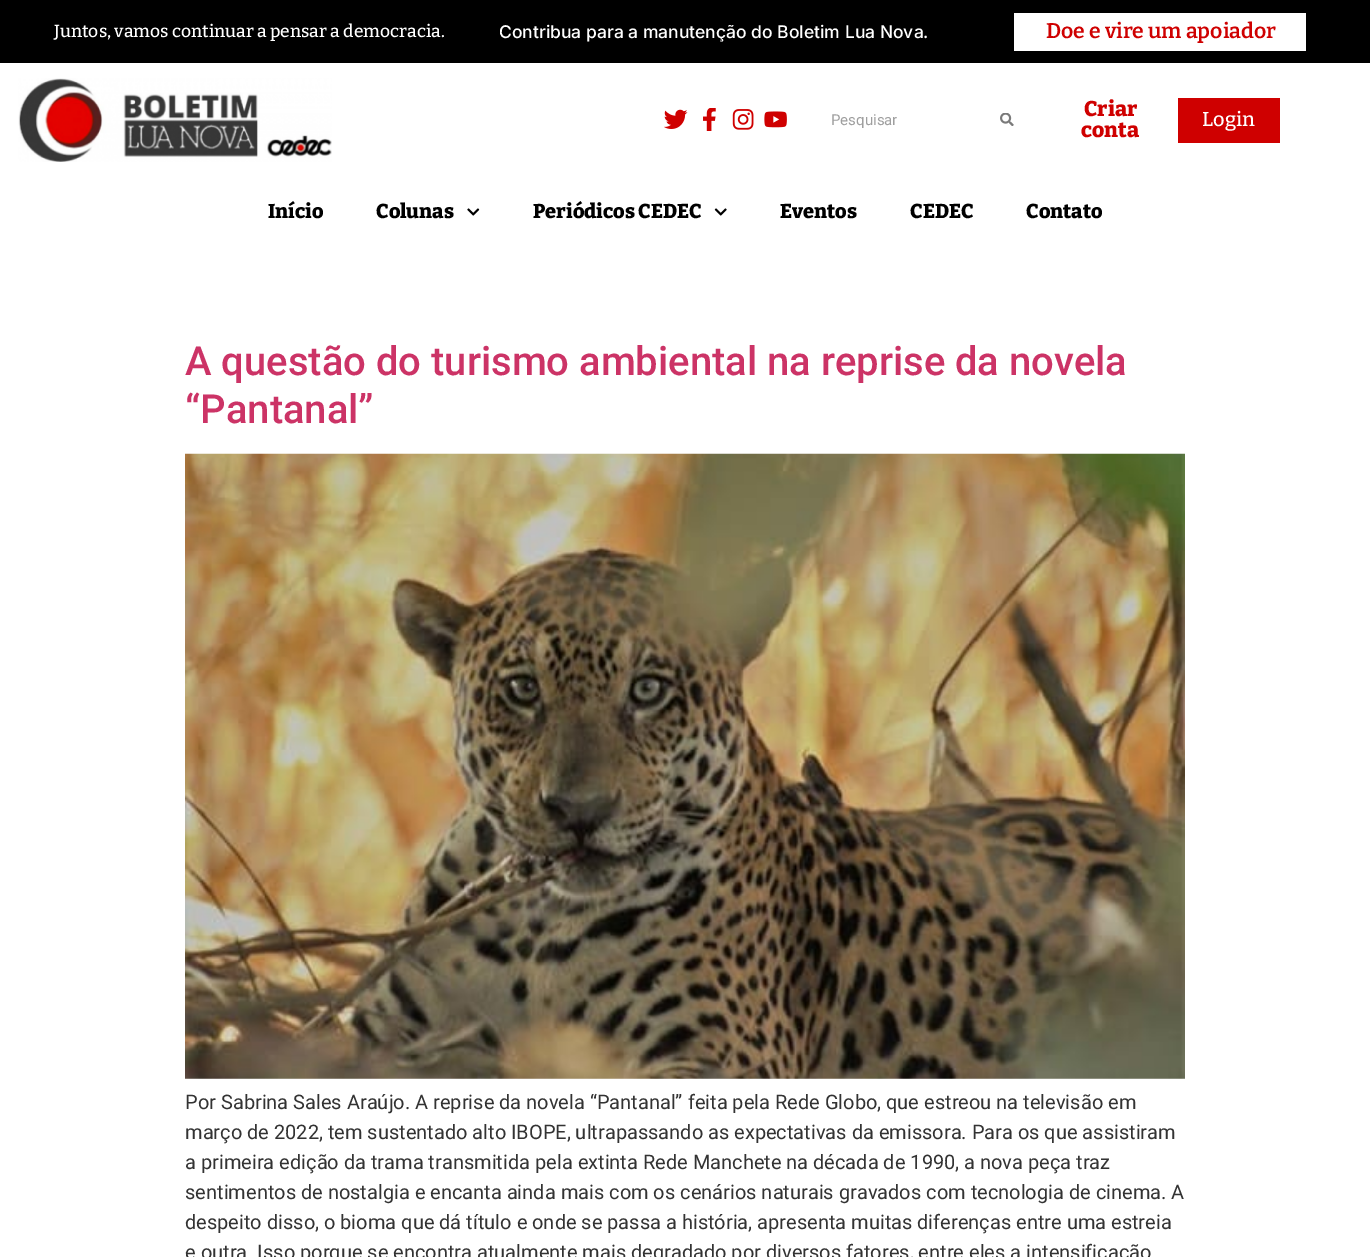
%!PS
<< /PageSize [1370 1257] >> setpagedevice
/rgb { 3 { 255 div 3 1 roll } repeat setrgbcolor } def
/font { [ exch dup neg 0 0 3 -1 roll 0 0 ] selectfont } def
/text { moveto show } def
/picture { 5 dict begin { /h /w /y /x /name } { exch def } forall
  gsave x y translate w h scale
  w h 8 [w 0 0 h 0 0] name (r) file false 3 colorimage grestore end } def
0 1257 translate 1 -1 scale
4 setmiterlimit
255 255 255 rgb
0 0 1370 1257 rectfill
0 0 0 rgb
0 0 1370 63 rectfill
255 255 255 rgb
1014 13 292 38 rectfill
(img_01.rgb) 18 78 314 84 picture
(img_02.rgb) 664 109 24 20 picture
(img_03.rgb) 703 108 13 23 picture
(img_04.rgb) 732 109 22 21 picture
(img_05.rgb) 764 111 23 17 picture
(img_06.rgb) 1000 113 14 13 picture
207 0 0 rgb
1178 98 102 45 rectfill
(img_07.rgb) 467 208 13 8 picture
(img_08.rgb) 714 208 13 8 picture
(img_09.rgb) 185 453 1000 626 picture
/Bitter-Medium 17.5 font
255 255 255 rgb
(Juntos, vamos continuar a pensar a democracia.) 54 37 text
/Inter-Medium 17.5 font
(Contribua para a manutenção do Boletim Lua Nova.) 499 38 text
/Bitter-SemiBold 21.25 font
207 0 0 rgb
(Doe e vire um apoiador) 1046 38 text
/Roboto-Regular 15 font
159 159 159 rgb
(Pesquisar) 831 125 text
/Bitter-ExtraBold 21.25 font
207 0 0 rgb
(Criar) 1084 116 text
(conta) 1081 137 text
/Bitter-Medium 20 font
255 255 255 rgb
(Login) 1202 126 text
/Bitter-ExtraBold 20 font
0 0 0 rgb
(Início) 268 218 text
(Colunas) 376 218 text
(Periódicos CEDEC) 533 218 text
(Eventos) 780 218 text
(CEDEC) 910 218 text
(Contato) 1026 218 text
/Roboto-Medium 40 font
204 51 102 rgb
(A questão do turismo ambiental na reprise da novela) 185 375 text
(“Pantanal”) 185 423 text
/Roboto-Regular 20 font
51 51 51 rgb
(Por Sabrina Sales Araújo. A reprise da novela “Pantanal” feita pela Rede Globo, que estreou na televisão em) 185 1109 text
(março de 2022, tem sustentado alto IBOPE, ultrapassando as expectativas da emissora. Para os que assistiram) 185 1139 text
(a primeira edição da trama transmitida pela extinta Rede Manchete na década de 1990, a nova peça traz) 185 1169 text
(sentimentos de nostalgia e encanta ainda mais com os cenários naturais gravados com tecnologia de cinema. A) 185 1199 text
(despeito disso, o bioma que dá título e onde se passa a história, apresenta muitas diferenças entre uma estreia) 185 1229 text
(e outra. Isso porque se encontra atualmente mais degradado por diversos fatores, entre eles a intensificação) 185 1259 text
showpage
